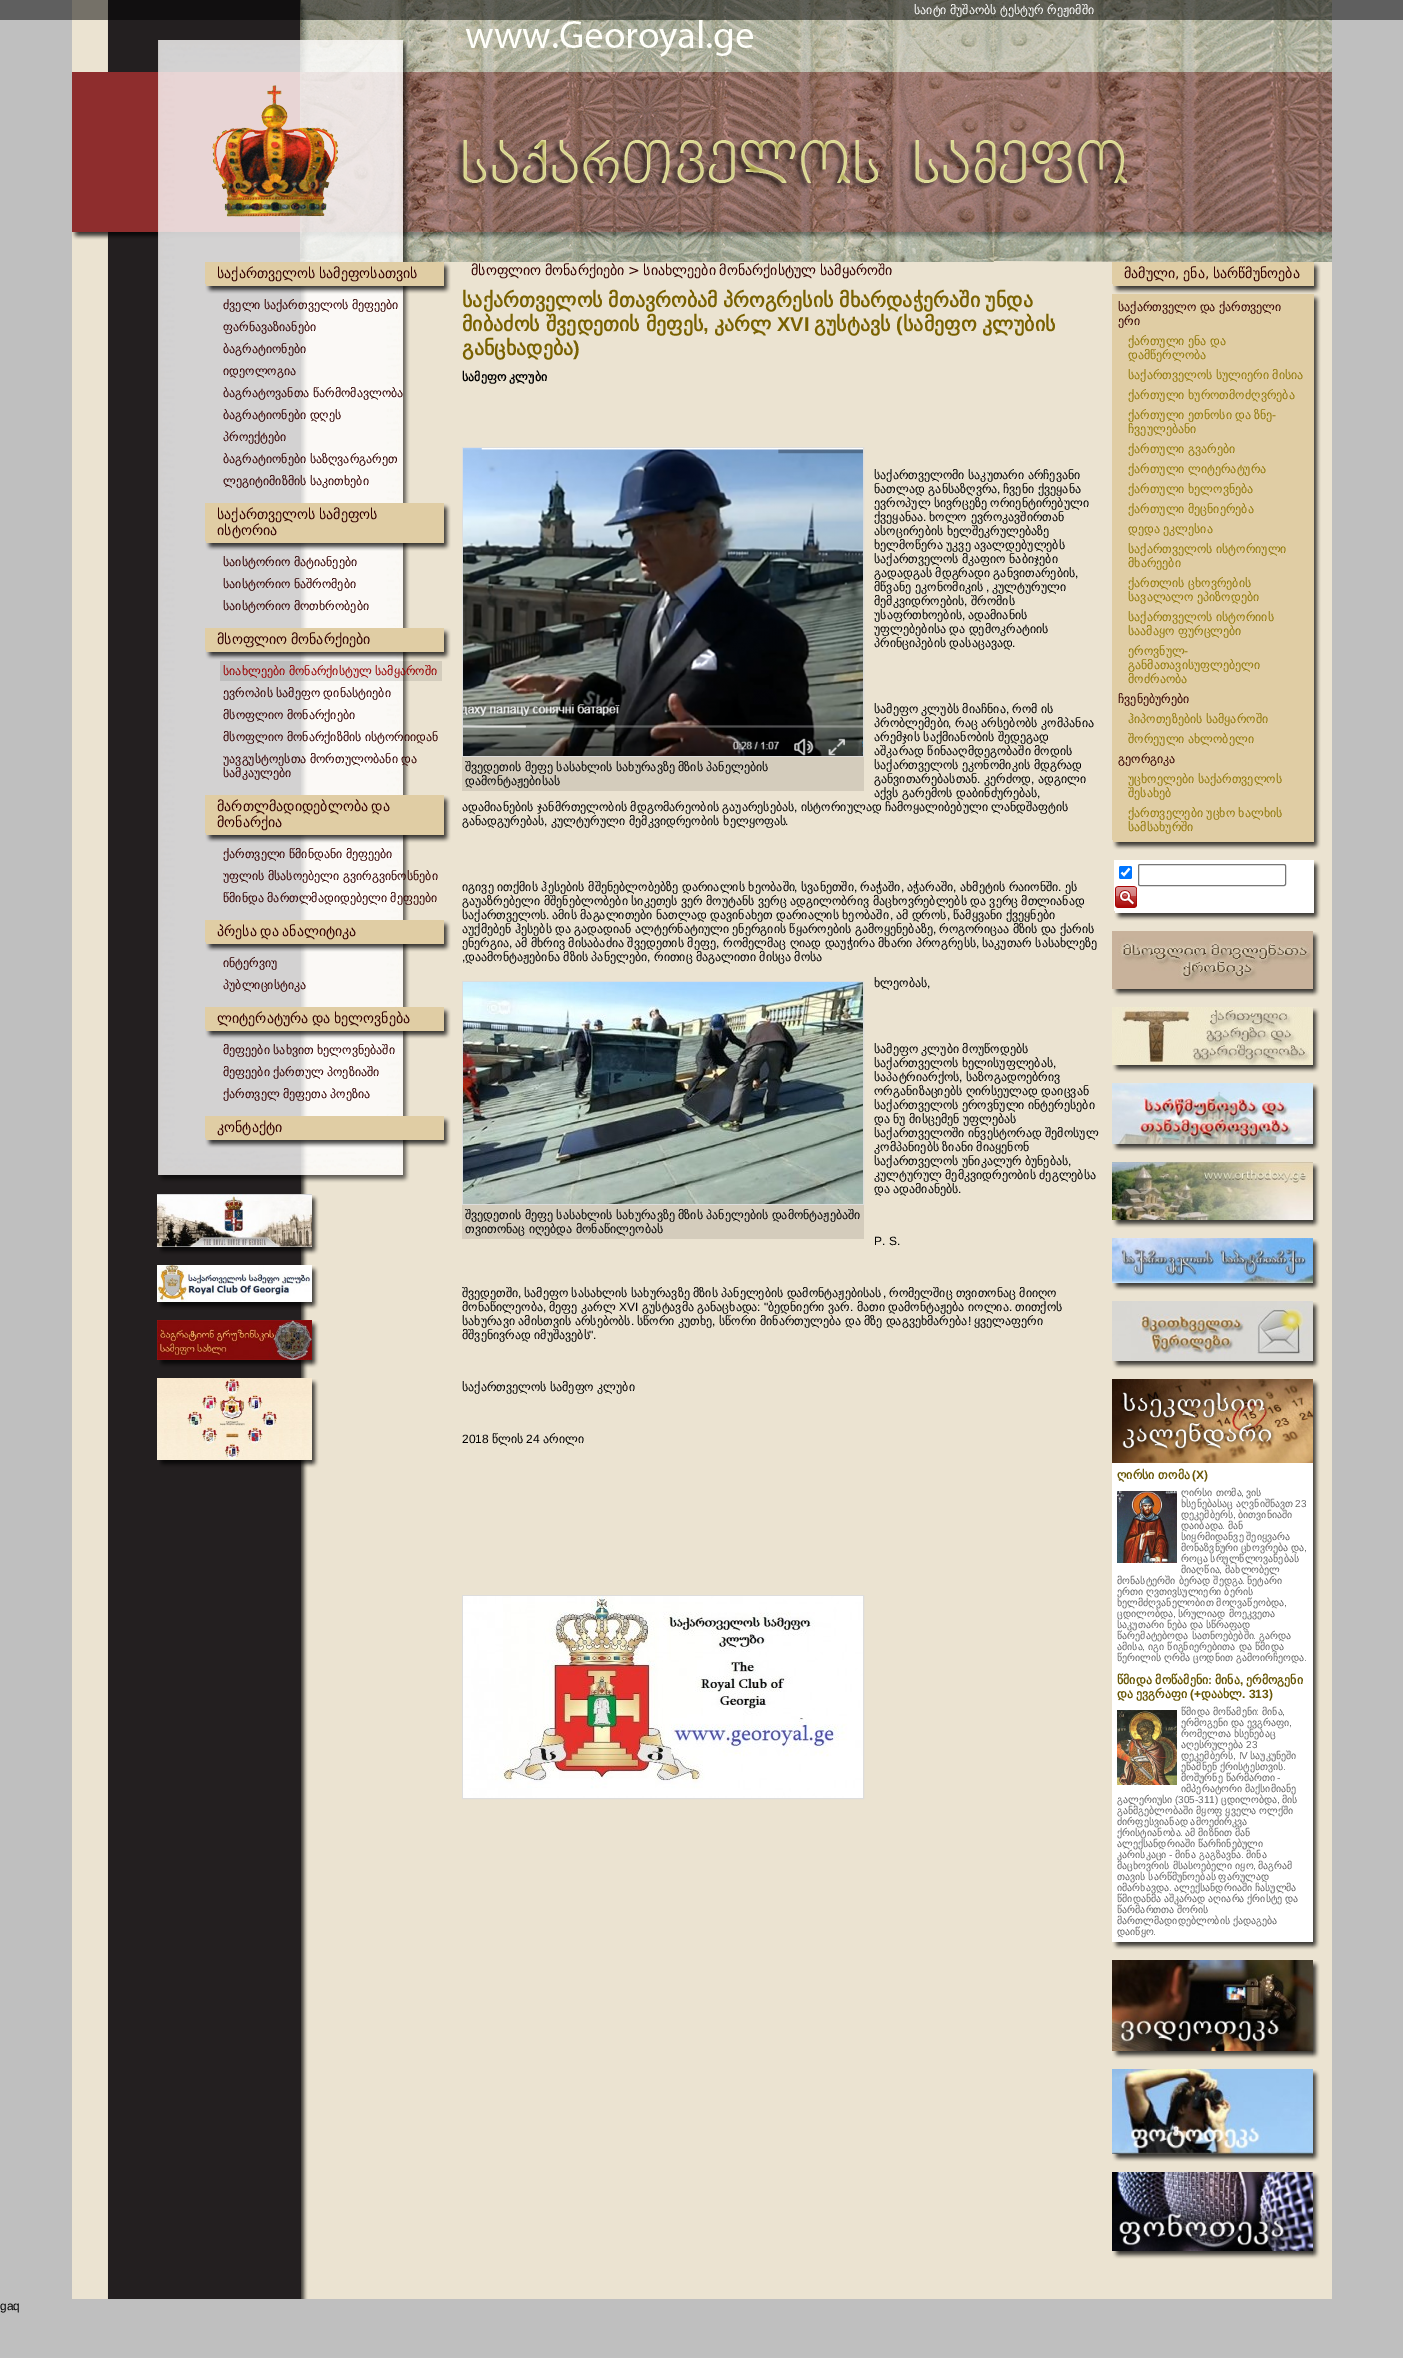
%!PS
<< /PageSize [1403 2358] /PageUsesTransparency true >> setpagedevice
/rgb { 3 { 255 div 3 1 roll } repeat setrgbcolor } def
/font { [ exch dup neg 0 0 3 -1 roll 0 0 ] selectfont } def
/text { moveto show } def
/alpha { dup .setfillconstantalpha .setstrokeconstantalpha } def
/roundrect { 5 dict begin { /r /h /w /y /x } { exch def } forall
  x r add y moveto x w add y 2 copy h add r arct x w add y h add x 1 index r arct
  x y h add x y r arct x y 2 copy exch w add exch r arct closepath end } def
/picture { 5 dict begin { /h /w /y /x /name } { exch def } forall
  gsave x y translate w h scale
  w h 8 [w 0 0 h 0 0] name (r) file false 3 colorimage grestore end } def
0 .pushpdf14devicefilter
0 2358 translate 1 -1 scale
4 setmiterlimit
191 191 191 rgb
0 0 1403 2358 rectfill
(img_01.rgb) 72 0 1260 262 picture
0.5 alpha
0 0 0 rgb
0 0 1403 20 rectfill
1 alpha
(img_02.rgb) 158 40 252 222 picture
(img_03.rgb) 212 85 126 132 picture
(img_04.rgb) 72 262 1260 2037 picture
(img_05.rgb) 158 262 252 921 picture
224 205 164 rgb
205 262 237 22 rectfill
(img_06.rgb) 442 262 9 22 picture
(img_07.rgb) 205 284 237 10 picture
(img_08.rgb) 442 284 9 10 picture
205 503 237 38 rectfill
(img_09.rgb) 442 503 9 38 picture
(img_10.rgb) 205 541 237 10 picture
(img_08.rgb) 442 541 9 10 picture
205 628 237 22 rectfill
(img_06.rgb) 442 628 9 22 picture
(img_11.rgb) 205 650 237 10 picture
(img_08.rgb) 442 650 9 10 picture
0.1 alpha
0 0 0 rgb
220 661 222 20 rectfill
1 alpha
224 205 164 rgb
205 795 237 38 rectfill
(img_09.rgb) 442 795 9 38 picture
(img_12.rgb) 205 833 237 10 picture
(img_08.rgb) 442 833 9 10 picture
205 920 237 22 rectfill
(img_06.rgb) 442 920 9 22 picture
(img_13.rgb) 205 942 237 10 picture
(img_08.rgb) 442 942 9 10 picture
205 1007 237 22 rectfill
(img_06.rgb) 442 1007 9 22 picture
(img_14.rgb) 205 1029 237 10 picture
(img_08.rgb) 442 1029 9 10 picture
205 1116 237 22 rectfill
(img_06.rgb) 442 1116 9 22 picture
(img_15.rgb) 205 1138 237 10 picture
(img_08.rgb) 442 1138 9 10 picture
(img_16.rgb) 157 1194 155 53 picture
(img_17.rgb) 312 1195 7 52 picture
(img_18.rgb) 159 1247 153 8 picture
(img_19.rgb) 312 1247 7 8 picture
(img_20.rgb) 157 1265 155 37 picture
(img_21.rgb) 312 1266 7 36 picture
(img_18.rgb) 159 1302 153 8 picture
(img_19.rgb) 312 1302 7 8 picture
(img_22.rgb) 157 1320 155 40 picture
(img_23.rgb) 312 1321 7 39 picture
(img_18.rgb) 159 1360 153 8 picture
(img_19.rgb) 312 1360 7 8 picture
(img_24.rgb) 157 1378 155 82 picture
(img_25.rgb) 312 1379 7 81 picture
(img_18.rgb) 159 1460 153 8 picture
(img_19.rgb) 312 1460 7 8 picture
221 221 221 rgb
462.5 447.5 401 309 rectstroke
(img_26.rgb) 463 448 400 308 picture
212 204 188 rgb
462 757 402 34 rectfill
221 221 221 rgb
462.5 981.5 401 223 rectstroke
(img_27.rgb) 463 982 400 222 picture
212 204 188 rgb
462 1205 402 34 rectfill
221 221 221 rgb
462.5 1595.5 401 203 rectstroke
(img_28.rgb) 463 1596 400 202 picture
224 205 164 rgb
1112 262 200 22 rectfill
(img_06.rgb) 1312 262 9 22 picture
(img_29.rgb) 1112 284 200 10 picture
(img_08.rgb) 1312 284 9 10 picture
1112 294 200 546 rectfill
(img_30.rgb) 1312 294 9 546 picture
(img_29.rgb) 1112 840 200 10 picture
(img_08.rgb) 1312 840 9 10 picture
255 255 255 rgb
1114 860 198 51 rectfill
0 117 255 rgb
1119 866 13 13 2 roundrect fill
255 255 255 rgb
2.1 setlinewidth
1121.5 872.5 moveto 2.5 2.5 rlineto 5.5 -6.5 rlineto stroke
118 118 118 rgb
1 setlinewidth
1138.5 864.5 147 21 1.5 roundrect stroke
(img_31.rgb) 1115 886 22 22 picture
(img_32.rgb) 1312 860 9 51 picture
(img_33.rgb) 1114 911 198 10 picture
(img_34.rgb) 1312 911 9 10 picture
(img_35.rgb) 1112 931 201 58 picture
(img_36.rgb) 1313 932 7 57 picture
(img_37.rgb) 1112 989 201 8 picture
(img_19.rgb) 1313 989 7 8 picture
(img_38.rgb) 1112 1007 201 58 picture
(img_36.rgb) 1313 1008 7 57 picture
(img_37.rgb) 1112 1065 201 8 picture
(img_19.rgb) 1313 1065 7 8 picture
(img_39.rgb) 1112 1083 201 61 picture
(img_40.rgb) 1313 1084 7 60 picture
(img_37.rgb) 1112 1144 201 8 picture
(img_19.rgb) 1313 1144 7 8 picture
(img_41.rgb) 1112 1162 201 58 picture
(img_36.rgb) 1313 1163 7 57 picture
(img_37.rgb) 1112 1220 201 8 picture
(img_19.rgb) 1313 1220 7 8 picture
(img_42.rgb) 1112 1238 201 45 picture
(img_43.rgb) 1313 1239 7 44 picture
(img_37.rgb) 1112 1283 201 8 picture
(img_19.rgb) 1313 1283 7 8 picture
(img_44.rgb) 1112 1301 201 60 picture
(img_45.rgb) 1313 1302 7 59 picture
(img_37.rgb) 1112 1361 201 8 picture
(img_19.rgb) 1313 1361 7 8 picture
(img_46.rgb) 1112 1379 201 84 picture
255 255 255 rgb
1112 1463 201 479 rectfill
(img_47.rgb) 1117 1491 60 72 picture
(img_48.rgb) 1117 1710 60 75 picture
(img_49.rgb) 1313 1380 7 562 picture
(img_37.rgb) 1112 1942 201 8 picture
(img_19.rgb) 1313 1942 7 8 picture
(img_50.rgb) 1112 1960 201 91 picture
(img_51.rgb) 1313 1961 7 90 picture
(img_37.rgb) 1112 2051 201 8 picture
(img_19.rgb) 1313 2051 7 8 picture
(img_52.rgb) 1112 2069 201 85 picture
(img_53.rgb) 1313 2070 7 84 picture
(img_37.rgb) 1112 2154 201 8 picture
(img_19.rgb) 1313 2154 7 8 picture
(img_54.rgb) 1112 2172 201 79 picture
(img_55.rgb) 1313 2173 7 78 picture
(img_37.rgb) 1112 2251 201 8 picture
(img_19.rgb) 1313 2251 7 8 picture
/DejaVuSans-Regular 12 font
914 14 moveto -0.5 0 32 (საიტი მუშაობს ტესტურ რეჟიმში) widthshow
/DejaVuSans-Regular 14 font
51 0 0 rgb
217 278 moveto -1 0 32 (საქართველოს სამეფოსათვის) widthshow
/DejaVuSans-Regular 12 font
223 309 moveto -0.5 0 32 (ძველი საქართველოს მეფეები) widthshow
(ფარნავაზიანები) 223 331 text
(ბაგრატიონები) 223 353 text
(იდეოლოგია) 223 375 text
223 397 moveto -0.5 0 32 (ბაგრატოვანთა წარმომავლობა) widthshow
223 419 moveto -0.5 0 32 (ბაგრატიონები დღეს) widthshow
(პროექტები) 223 441 text
223 463 moveto -0.5 0 32 (ბაგრატიონები საზღვარგარეთ) widthshow
223 485 moveto -0.5 0 32 (ლეგიტიმიზმის საკითხები) widthshow
/DejaVuSans-Regular 14 font
217 519 moveto -1 0 32 (საქართველოს სამეფოს) widthshow
(ისტორია) 217 535 text
/DejaVuSans-Regular 12 font
223 566 moveto -0.5 0 32 (საისტორიო მატიანეები) widthshow
223 588 moveto -0.5 0 32 (საისტორიო ნაშრომები) widthshow
223 610 moveto -0.5 0 32 (საისტორიო მოთხრობები) widthshow
/DejaVuSans-Regular 14 font
217 644 moveto -1 0 32 (მსოფლიო მონარქიები) widthshow
/DejaVuSans-Regular 12 font
153 0 0 rgb
223 675 moveto -0.5 0 32 (სიახლეები მონარქისტულ სამყაროში) widthshow
51 0 0 rgb
223 697 moveto -0.5 0 32 (ევროპის სამეფო დინასტიები) widthshow
223 719 moveto -0.5 0 32 (მსოფლიო მონარქიები) widthshow
223 741 moveto -0.5 0 32 (მსოფლიო მონარქიზმის ისტორიიდან) widthshow
223 763 moveto -0.5 0 32 (უავგუსტოესთა მორთულობანი და) widthshow
(სამკაულები) 223 777 text
/DejaVuSans-Regular 14 font
217 811 moveto -1 0 32 (მართლმადიდებლობა და) widthshow
(მონარქია) 217 827 text
/DejaVuSans-Regular 12 font
223 858 moveto -0.5 0 32 (ქართველი წმინდანი მეფეები) widthshow
223 880 moveto -0.5 0 32 (უფლის მსასოებელი გვირგვინოსნები) widthshow
223 902 moveto -0.5 0 32 (წმინდა მართლმადიდებელი მეფეები) widthshow
/DejaVuSans-Regular 14 font
217 936 moveto -1 0 32 (პრესა და ანალიტიკა) widthshow
/DejaVuSans-Regular 12 font
(ინტერვიუ) 223 967 text
(პუბლიცისტიკა) 223 989 text
/DejaVuSans-Regular 14 font
217 1023 moveto -1 0 32 (ლიტერატურა და ხელოვნება) widthshow
/DejaVuSans-Regular 12 font
223 1054 moveto -0.5 0 32 (მეფეები სახვით ხელოვნებაში) widthshow
223 1076 moveto -0.5 0 32 (მეფეები ქართულ პოეზიაში) widthshow
223 1098 moveto -0.5 0 32 (ქართველ მეფეთა პოეზია) widthshow
/DejaVuSans-Regular 14 font
(კონტაქტი) 217 1132 text
471 275 moveto -1 0 32 (მსოფლიო მონარქიები > სიახლეები მონარქისტულ სამყაროში) widthshow
/DejaVuSans-Bold 20 font
121 97 0 rgb
462 307 moveto -1 0 32 (საქართველოს მთავრობამ პროგრესის მხარდაჭერაში უნდა) widthshow
462 331 moveto -0.5 0 32 (მიბაძოს შვედეთის მეფეს) widthshow
/LiberationSans-Bold 20 font
(,) 703 331 text
/DejaVuSans-Bold 20 font
(კარლ) 714 331 text
/LiberationSans-Bold 20 font
(XVI) 777 331 text
/DejaVuSans-Bold 20 font
(გუსტავს) 814 331 text
/LiberationSans-Bold 20 font
(\() 896 331 text
/DejaVuSans-Bold 20 font
903 331 moveto -0.5 0 32 (სამეფო კლუბის) widthshow
(განცხადება) 462 355 text
/LiberationSans-Bold 20 font
(\)) 573 355 text
/DejaVuSans-Bold 12 font
0 0 0 rgb
462 381 moveto -0.5 0 32 (სამეფო კლუბი) widthshow
/DejaVuSans-Regular 12 font
874 479 moveto -0.5 0 32 (საქართველომი საკუთარი არჩევანი) widthshow
(ნათლად განსაზღვრა) 874 493 text
/LiberationSans-Regular 12 font
(,) 997 493 text
/DejaVuSans-Regular 12 font
(ჩვენი ქვეყანა) 1003 493 text
874 507 moveto -0.5 0 32 (ევროპულ სივრცეზე ორიენტირებული) widthshow
(ქვეყანაა) 874 521 text
/LiberationSans-Regular 12 font
(.) 923 521 text
/DejaVuSans-Regular 12 font
(ხოლო ევროკავშირთან) 929 521 text
874 535 moveto -0.5 0 32 (ასოცირების ხელშეკრულებაზე) widthshow
874 549 moveto -0.5 0 32 (ხელმოწერა უკვე ავალდებულებს) widthshow
874 563 moveto -0.5 0 32 (საქართველოს მკაფიო ნაბიჯები) widthshow
874 577 moveto -0.5 0 32 (გადადგას მდგრადი განვითარების) widthshow
/LiberationSans-Regular 12 font
(,) 1075 577 text
/DejaVuSans-Regular 12 font
(მწვანე ეკონომიკის) 874 591 text
/LiberationSans-Regular 12 font
(,) 986 591 text
/DejaVuSans-Regular 12 font
(კულტურული) 992 591 text
(მემკვიდროების) 874 605 text
/LiberationSans-Regular 12 font
(,) 964 605 text
/DejaVuSans-Regular 12 font
(შრომის) 971 605 text
(უსაფრთხოების) 874 619 text
/LiberationSans-Regular 12 font
(,) 962 619 text
/DejaVuSans-Regular 12 font
(ადამიანის) 968 619 text
874 633 moveto -0.5 0 32 (უფლებებისა და დემოკრატიის) widthshow
874 647 moveto -0.5 0 32 (პრინციპების დასაცავად) widthshow
/LiberationSans-Regular 12 font
(.) 1012 647 text
/DejaVuSans-Regular 12 font
874 713 moveto -0.5 0 32 (სამეფო კლუბს მიაჩნია) widthshow
/LiberationSans-Regular 12 font
(,) 1006 713 text
/DejaVuSans-Regular 12 font
1012 713 moveto -0.5 0 32 (რომ ის) widthshow
(პრობლემები) 874 727 text
/LiberationSans-Regular 12 font
(,) 948 727 text
/DejaVuSans-Regular 12 font
(რაც არსებობს კომპანია) 955 727 text
874 741 moveto -0.5 0 32 (არემჯის საქმიანობის შედეგად) widthshow
874 755 moveto -0.5 0 32 (აშკარად წინააღმდეგობაში მოდის) widthshow
874 769 moveto -0.5 0 32 (საქართველოს ეკონომიკის მდგრად) widthshow
(განვითარებასთან) 874 783 text
/LiberationSans-Regular 12 font
(.) 977 783 text
/DejaVuSans-Regular 12 font
(კერძოდ) 984 783 text
/LiberationSans-Regular 12 font
(,) 1031 783 text
/DejaVuSans-Regular 12 font
(ადგილი) 1038 783 text
874 797 moveto -0.5 0 32 (აქვს გარემოს დაბინძურებას) widthshow
/LiberationSans-Regular 12 font
(,) 1037 797 text
/DejaVuSans-Regular 12 font
462 811 moveto -0.5 0 32 (ადამიანების ჯანმრთელობის მდგომარეობის გაუარესებას) widthshow
/LiberationSans-Regular 12 font
(,) 794 811 text
/DejaVuSans-Regular 12 font
801 811 moveto -0.5 0 32 (ისტორიულად ჩამოყალიბებული ლანდშაფტის) widthshow
(განადგურებას) 462 825 text
/LiberationSans-Regular 12 font
(,) 544 825 text
/DejaVuSans-Regular 12 font
(კულტურული მემკვიდრეობის ხელყოფას) 551 825 text
/LiberationSans-Regular 12 font
(.) 785 825 text
/DejaVuSans-Regular 12 font
465 771 moveto -0.5 0 32 (შვედეთის მეფე სასახლის სახურავზე მზის პანელების) widthshow
(დამონტაჟებისას) 465 785 text
462 891 moveto -0.25 0 32 (იგივე ითქმის ჰესების მშენებლობებზე დარიალის ხეობაში) widthshow
/LiberationSans-Regular 12 font
(,) 794 891 text
/DejaVuSans-Regular 12 font
(სვანეთში) 801 891 text
/LiberationSans-Regular 12 font
(,) 854 891 text
/DejaVuSans-Regular 12 font
(რაჭაში) 860 891 text
/LiberationSans-Regular 12 font
(,) 901 891 text
/DejaVuSans-Regular 12 font
(აჭარაში) 907 891 text
/LiberationSans-Regular 12 font
(,) 953 891 text
/DejaVuSans-Regular 12 font
960 891 moveto -0.25 0 32 (ახმეტის რაიონში) widthshow
/LiberationSans-Regular 12 font
(.) 1058 891 text
/DejaVuSans-Regular 12 font
(ეს) 1065 891 text
462 905 moveto -0.5 0 32 (გაუაზრებელი მშენებლობები სიკეთეს ვერ მოუტანს ვერც ადგილობრივ მაცხოვრებლებს და ვერც მთლიანად) widthshow
(საქართველოს) 462 919 text
/LiberationSans-Regular 12 font
(.) 546 919 text
/DejaVuSans-Regular 12 font
552 919 moveto -0.5 0 32 (ამის მაგალითები ნათლად დავინახეთ დარიალის ხეობაში) widthshow
/LiberationSans-Regular 12 font
(,) 890 919 text
/DejaVuSans-Regular 12 font
896 919 moveto -0.5 0 32 (ამ დროს) widthshow
/LiberationSans-Regular 12 font
(,) 947 919 text
/DejaVuSans-Regular 12 font
953 919 moveto -0.5 0 32 (წამყვანი ქვეყნები) widthshow
462 933 moveto -0.5 0 32 (აუქმებენ ჰესებს და გადადიან ალტერნატიული ენერგიის წყაროების გამოყენებაზე) widthshow
/LiberationSans-Regular 12 font
(,) 933 933 text
/DejaVuSans-Regular 12 font
939 933 moveto -0.5 0 32 (როგორიცაა მზის და ქარის) widthshow
(ენერგია) 462 947 text
/LiberationSans-Regular 12 font
(,) 509 947 text
/DejaVuSans-Regular 12 font
515 947 moveto -0.5 0 32 (ამ მხრივ მისაბაძია შვედეთის მეფე) widthshow
/LiberationSans-Regular 12 font
(,) 716 947 text
/DejaVuSans-Regular 12 font
723 947 moveto -0.5 0 32 (რომელმაც ღიად დაუჭირა მხარი პროგრესს) widthshow
/LiberationSans-Regular 12 font
(,) 976 947 text
/DejaVuSans-Regular 12 font
982 947 moveto -0.5 0 32 (საკუთარ სასახლეზე) widthshow
/LiberationSans-Regular 12 font
(,) 462 961 text
/DejaVuSans-Regular 12 font
465 961 moveto -0.5 0 32 (დაამონტაჟებინა მზის პანელები) widthshow
/LiberationSans-Regular 12 font
(,) 647 961 text
/DejaVuSans-Regular 12 font
654 961 moveto -0.5 0 32 (რითიც მაგალითი მისცა მოსა) widthshow
(ხლეობას) 874 987 text
/LiberationSans-Regular 12 font
(,) 927 987 text
/DejaVuSans-Regular 12 font
874 1053 moveto -0.5 0 32 (სამეფო კლუბი მოუწოდებს) widthshow
874 1067 moveto -0.5 0 32 (საქართველოს ხელისუფლებას) widthshow
/LiberationSans-Regular 12 font
(,) 1053 1067 text
/DejaVuSans-Regular 12 font
(საპატრიარქოს) 874 1081 text
/LiberationSans-Regular 12 font
(,) 959 1081 text
/DejaVuSans-Regular 12 font
(საზოგადოებრივ) 966 1081 text
874 1095 moveto -0.5 0 32 (ორგანიზაციებს ღირსეულად დაიცვან) widthshow
874 1109 moveto -0.5 0 32 (საქართველოს ეროვნული ინტერესები) widthshow
874 1123 moveto -0.5 0 32 (და ნუ მისცემენ უფლებას) widthshow
874 1137 moveto -0.5 0 32 (საქართველოში ინვესტორად შემოსულ) widthshow
874 1151 moveto -0.5 0 32 (კომპანიებს ზიანი მიაყენონ) widthshow
874 1165 moveto -0.5 0 32 (საქართველოს უნიკალურ ბუნებას) widthshow
/LiberationSans-Regular 12 font
(,) 1068 1165 text
/DejaVuSans-Regular 12 font
874 1179 moveto -0.5 0 32 (კულტურულ მემკვიდრეობის ძეგლებსა) widthshow
874 1193 moveto -0.5 0 32 (და ადამიანებს) widthshow
/LiberationSans-Regular 12 font
(.) 958 1193 text
/DejaVuSans-Regular 12 font
465 1219 moveto -0.5 0 32 (შვედეთის მეფე სასახლის სახურავზე მზის პანელების დამონტაჟებაში) widthshow
465 1233 moveto -0.5 0 32 (თვითონაც იღებდა მონაწილეობას) widthshow
/LiberationSans-Regular 12 font
(P. S.) 874 1245 text
/DejaVuSans-Regular 12 font
(შვედეთში) 462 1297 text
/LiberationSans-Regular 12 font
(,) 518 1297 text
/DejaVuSans-Regular 12 font
524 1297 moveto -0.5 0 32 (სამეფო სასახლის სახურავზე მზის პანელების დამონტაჟებისას) widthshow
/LiberationSans-Regular 12 font
(,) 883 1297 text
/DejaVuSans-Regular 12 font
889 1297 moveto -0.5 0 32 (რომელშიც თვითონაც მიიღო) widthshow
(მონაწილეობა) 462 1311 text
/LiberationSans-Regular 12 font
(,) 543 1311 text
/DejaVuSans-Regular 12 font
(მეფე) 549 1311 text
(კარლ) 581 1311 text
/LiberationSans-Regular 12 font
(XVI) 619 1311 text
/DejaVuSans-Regular 12 font
(გუსტავმა) 642 1311 text
(განაცხადა) 697 1311 text
/LiberationSans-Regular 12 font
(: ") 757 1311 text
/DejaVuSans-Regular 12 font
(ბედნიერი) 768 1311 text
(ვარ) 828 1311 text
/LiberationSans-Regular 12 font
(.) 850 1311 text
/DejaVuSans-Regular 12 font
(მათი) 857 1311 text
(დამონტაჟება) 888 1311 text
(იოლია) 968 1311 text
/LiberationSans-Regular 12 font
(.) 1009 1311 text
/DejaVuSans-Regular 12 font
(თითქოს) 1015 1311 text
462 1325 moveto -0.5 0 32 (სახურავი ამისთვის არსებობს) widthshow
/LiberationSans-Regular 12 font
(.) 631 1325 text
/DejaVuSans-Regular 12 font
637 1325 moveto -0.5 0 32 (სწორი კუთხე) widthshow
/LiberationSans-Regular 12 font
(,) 712 1325 text
/DejaVuSans-Regular 12 font
719 1325 moveto -0.5 0 32 (სწორი მინართულება და მზე დაგვეხმარება) widthshow
/LiberationSans-Regular 12 font
(!) 968 1325 text
/DejaVuSans-Regular 12 font
(ყველაფერი) 974 1325 text
462 1339 moveto -0.5 0 32 (მშვენივრად იმუშავებს) widthshow
/LiberationSans-Regular 12 font
(".) 589 1339 text
/DejaVuSans-Regular 12 font
462 1391 moveto -0.5 0 32 (საქართველოს სამეფო კლუბი) widthshow
/LiberationSans-Regular 12 font
(2018) 462 1443 text
/DejaVuSans-Regular 12 font
(წლის) 492 1443 text
/LiberationSans-Regular 12 font
(24) 526 1443 text
/DejaVuSans-Regular 12 font
(არილი) 543 1443 text
/DejaVuSans-Regular 14 font
51 0 0 rgb
1124 278 moveto -1 0 32 (მამული, ენა, სარწმუნოება) widthshow
/DejaVuSans-Regular 12 font
1118 311 moveto -0.5 0 32 (საქართველო და ქართველი) widthshow
(ერი) 1118 325 text
145 121 9 rgb
1128 345 moveto -0.5 0 32 (ქართული ენა და) widthshow
(დამწერლობა) 1128 359 text
1128 379 moveto -0.5 0 32 (საქართველოს სულიერი მისია) widthshow
1128 399 moveto -0.5 0 32 (ქართული ხუროთმოძღვრება) widthshow
1128 419 moveto -0.5 0 32 (ქართული ეთნოსი და) widthshow
(ზნე) 1254 419 text
/LiberationSans-Regular 12 font
(-) 1272 419 text
/DejaVuSans-Regular 12 font
(ჩვეულებანი) 1128 433 text
1128 453 moveto -0.5 0 32 (ქართული გვარები) widthshow
1128 473 moveto -0.5 0 32 (ქართული ლიტერატურა) widthshow
1128 493 moveto -0.5 0 32 (ქართული ხელოვნება) widthshow
1128 513 moveto -0.5 0 32 (ქართული მეცნიერება) widthshow
1128 533 moveto -0.5 0 32 (დედა ეკლესია) widthshow
1128 553 moveto -0.5 0 32 (საქართველოს ისტორიული) widthshow
(მხარეები) 1128 567 text
1128 587 moveto -0.5 0 32 (ქართლის ცხოვრების) widthshow
1128 601 moveto -0.5 0 32 (სავალალო ეპიზოდები) widthshow
1128 621 moveto -0.5 0 32 (საქართველოს ისტორიის) widthshow
1128 635 moveto -0.5 0 32 (საამაყო ფურცლები) widthshow
(ეროვნულ) 1128 655 text
/LiberationSans-Regular 12 font
(-) 1184 655 text
/DejaVuSans-Regular 12 font
(განმათავისუფლებელი) 1128 669 text
(მოძრაობა) 1128 683 text
51 0 0 rgb
(ჩვენებურები) 1118 703 text
145 121 9 rgb
1128 723 moveto -0.5 0 32 (ჰიპოთეზების სამყაროში) widthshow
1128 743 moveto -0.5 0 32 (შორეული ახლობელი) widthshow
51 0 0 rgb
(გეორგიკა) 1118 763 text
145 121 9 rgb
1128 783 moveto -0.5 0 32 (უცხოელები საქართველოს) widthshow
(შესახებ) 1128 797 text
1128 817 moveto -0.5 0 32 (ქართველები უცხო ხალხის) widthshow
(სამსახურში) 1128 831 text
/DejaVuSans-Bold 12 font
104 87 6 rgb
(ღირსი თომა) 1117 1479 text
/LiberationSans-Bold 12 font
(\(X\)) 1192 1479 text
/DejaVuSans-Regular 10 font
102 102 102 rgb
(ღირსი თომა) 1181 1496 text
/LiberationSans-Regular 10 font
(,) 1241 1496 text
/DejaVuSans-Regular 10 font
(ვის) 1246 1496 text
(ხსენებასაც აღვნიშნავთ) 1181 1507 text
/LiberationSans-Regular 10 font
(23) 1295 1507 text
/DejaVuSans-Regular 10 font
(დეკემბერს) 1181 1518 text
/LiberationSans-Regular 10 font
(,) 1233 1518 text
/DejaVuSans-Regular 10 font
(ბითვინიაში) 1238 1518 text
(დაიბადა) 1181 1529 text
/LiberationSans-Regular 10 font
(.) 1222 1529 text
/DejaVuSans-Regular 10 font
(მან) 1228 1529 text
1181 1540 moveto -0.5 0 32 (სიყრმიდანვე შეიყვარა) widthshow
1181 1551 moveto -0.5 0 32 (მონაზვნური ცხოვრება და) widthshow
/LiberationSans-Regular 10 font
(,) 1304 1551 text
/DejaVuSans-Regular 10 font
1181 1562 moveto -0.5 0 32 (როცა სრულწლოვანებას) widthshow
(მიაღწია) 1181 1573 text
/LiberationSans-Regular 10 font
(,) 1219 1573 text
/DejaVuSans-Regular 10 font
(მახლობელ) 1225 1573 text
(მონასტერში ბერად შედგა) 1117 1584 text
/LiberationSans-Regular 10 font
(.) 1242 1584 text
/DejaVuSans-Regular 10 font
(ნეტარი) 1247 1584 text
1117 1595 moveto -0.5 0 32 (ერთი ღვთივსულიერი ბერის) widthshow
1117 1606 moveto -0.5 0 32 (ხელმძღვანელობით მოღვაწეობდა) widthshow
/LiberationSans-Regular 10 font
(,) 1284 1606 text
/DejaVuSans-Regular 10 font
(ცდილობდა) 1117 1617 text
/LiberationSans-Regular 10 font
(,) 1173 1617 text
/DejaVuSans-Regular 10 font
(სრულიად მოეკვეთა) 1178 1617 text
1117 1628 moveto -0.5 0 32 (საკუთარი ნება და სწრაფად) widthshow
(წარემატებოდა სათნოებებში) 1117 1639 text
/LiberationSans-Regular 10 font
(.) 1253 1639 text
/DejaVuSans-Regular 10 font
(გარდა) 1259 1639 text
(ამისა) 1117 1650 text
/LiberationSans-Regular 10 font
(,) 1142 1650 text
/DejaVuSans-Regular 10 font
(იგი წიგნიერებითა და წმიდა) 1148 1650 text
1117 1661 moveto -0.5 0 32 (წერილის ღრმა ცოდნით გამოირჩეოდა) widthshow
/LiberationSans-Regular 10 font
(.) 1304 1661 text
/DejaVuSans-Bold 12 font
104 87 6 rgb
(წმიდა მოწამენი) 1117 1684 text
/LiberationSans-Bold 12 font
(:) 1208 1684 text
/DejaVuSans-Bold 12 font
(მინა) 1215 1684 text
/LiberationSans-Bold 12 font
(,) 1240 1684 text
/DejaVuSans-Bold 12 font
(ერმოგენი) 1246 1684 text
(და) 1117 1698 text
(ევგრაფი) 1136 1698 text
/LiberationSans-Bold 12 font
(\(+) 1190 1698 text
/DejaVuSans-Bold 12 font
(დაახლ) 1201 1698 text
/LiberationSans-Bold 12 font
(. 313\)) 1242 1698 text
/DejaVuSans-Regular 10 font
102 102 102 rgb
(წმიდა მოწამენი) 1181 1715 text
/LiberationSans-Regular 10 font
(:) 1256 1715 text
/DejaVuSans-Regular 10 font
(მინა) 1262 1715 text
/LiberationSans-Regular 10 font
(,) 1282 1715 text
/DejaVuSans-Regular 10 font
1181 1726 moveto -0.5 0 32 (ერმოგენი და ევგრაფი) widthshow
/LiberationSans-Regular 10 font
(,) 1289 1726 text
/DejaVuSans-Regular 10 font
1181 1737 moveto -0.5 0 32 (რომელთა ხსენებაც) widthshow
(აღესრულება) 1181 1748 text
/LiberationSans-Regular 10 font
(23) 1246 1748 text
/DejaVuSans-Regular 10 font
(დეკემბერს) 1181 1759 text
/LiberationSans-Regular 10 font
(, IV) 1233 1759 text
/DejaVuSans-Regular 10 font
(საუკუნეში) 1250 1759 text
1181 1770 moveto -0.5 0 32 (ეწამნენ ქრისტესთვის) widthshow
/LiberationSans-Regular 10 font
(.) 1283 1770 text
/DejaVuSans-Regular 10 font
(მოშურნე წარმართი) 1181 1781 text
/LiberationSans-Regular 10 font
(-) 1277 1781 text
/DejaVuSans-Regular 10 font
1181 1792 moveto -0.5 0 32 (იმპერატორი მაქსიმიანე) widthshow
(გალერიუსი) 1117 1803 text
/LiberationSans-Regular 10 font
(\(305-311\)) 1175 1803 text
/DejaVuSans-Regular 10 font
(ცდილობდა) 1221 1803 text
/LiberationSans-Regular 10 font
(,) 1277 1803 text
/DejaVuSans-Regular 10 font
(მის) 1282 1803 text
1117 1814 moveto -0.5 0 32 (განმგებლობაში მყოფ ყველა ოლქში) widthshow
1117 1825 moveto -0.5 0 32 (ძირფესვიანად ამოეძირკვა) widthshow
(ქრისტიანობა) 1117 1836 text
/LiberationSans-Regular 10 font
(.) 1180 1836 text
/DejaVuSans-Regular 10 font
1185 1836 moveto -0.25 0 32 (ამ მიზნით მან) widthshow
1117 1847 moveto -0.5 0 32 (ალექსანდრიაში წარჩინებული) widthshow
(კარისკაცი) 1117 1858 text
/LiberationSans-Regular 10 font
(-) 1169 1858 text
/DejaVuSans-Regular 10 font
(მინა გაგზავნა) 1175 1858 text
(მინა) 1246 1858 text
/LiberationSans-Regular 10 font
(.) 1241 1858 text
/DejaVuSans-Regular 10 font
1117 1869 moveto -0.25 0 32 (მაცხოვრის მსასოებელი იყო) widthshow
/LiberationSans-Regular 10 font
(,) 1253 1869 text
/DejaVuSans-Regular 10 font
(მაგრამ) 1258 1869 text
1117 1880 moveto -0.5 0 32 (თავის სარწმუნოებას ფარულად) widthshow
(იმარხავდა) 1117 1891 text
/LiberationSans-Regular 10 font
(.) 1169 1891 text
/DejaVuSans-Regular 10 font
1174 1891 moveto -0.5 0 32 (ალექსანდრიაში ჩასულმა) widthshow
1117 1902 moveto -0.5 0 32 (წმიდანმა აშკარად აღიარა ქრისტე და) widthshow
1117 1913 moveto -0.5 0 32 (წარმართთა შორის) widthshow
1117 1924 moveto -0.5 0 32 (მართლმადიდებლობის ქადაგება) widthshow
(დაიწყო) 1117 1935 text
/LiberationSans-Regular 10 font
(.) 1153 1935 text
/LiberationSans-Regular 12 font
0 0 0 rgb
(gaq) 0 2310 text
.poppdf14devicefilter showpage
